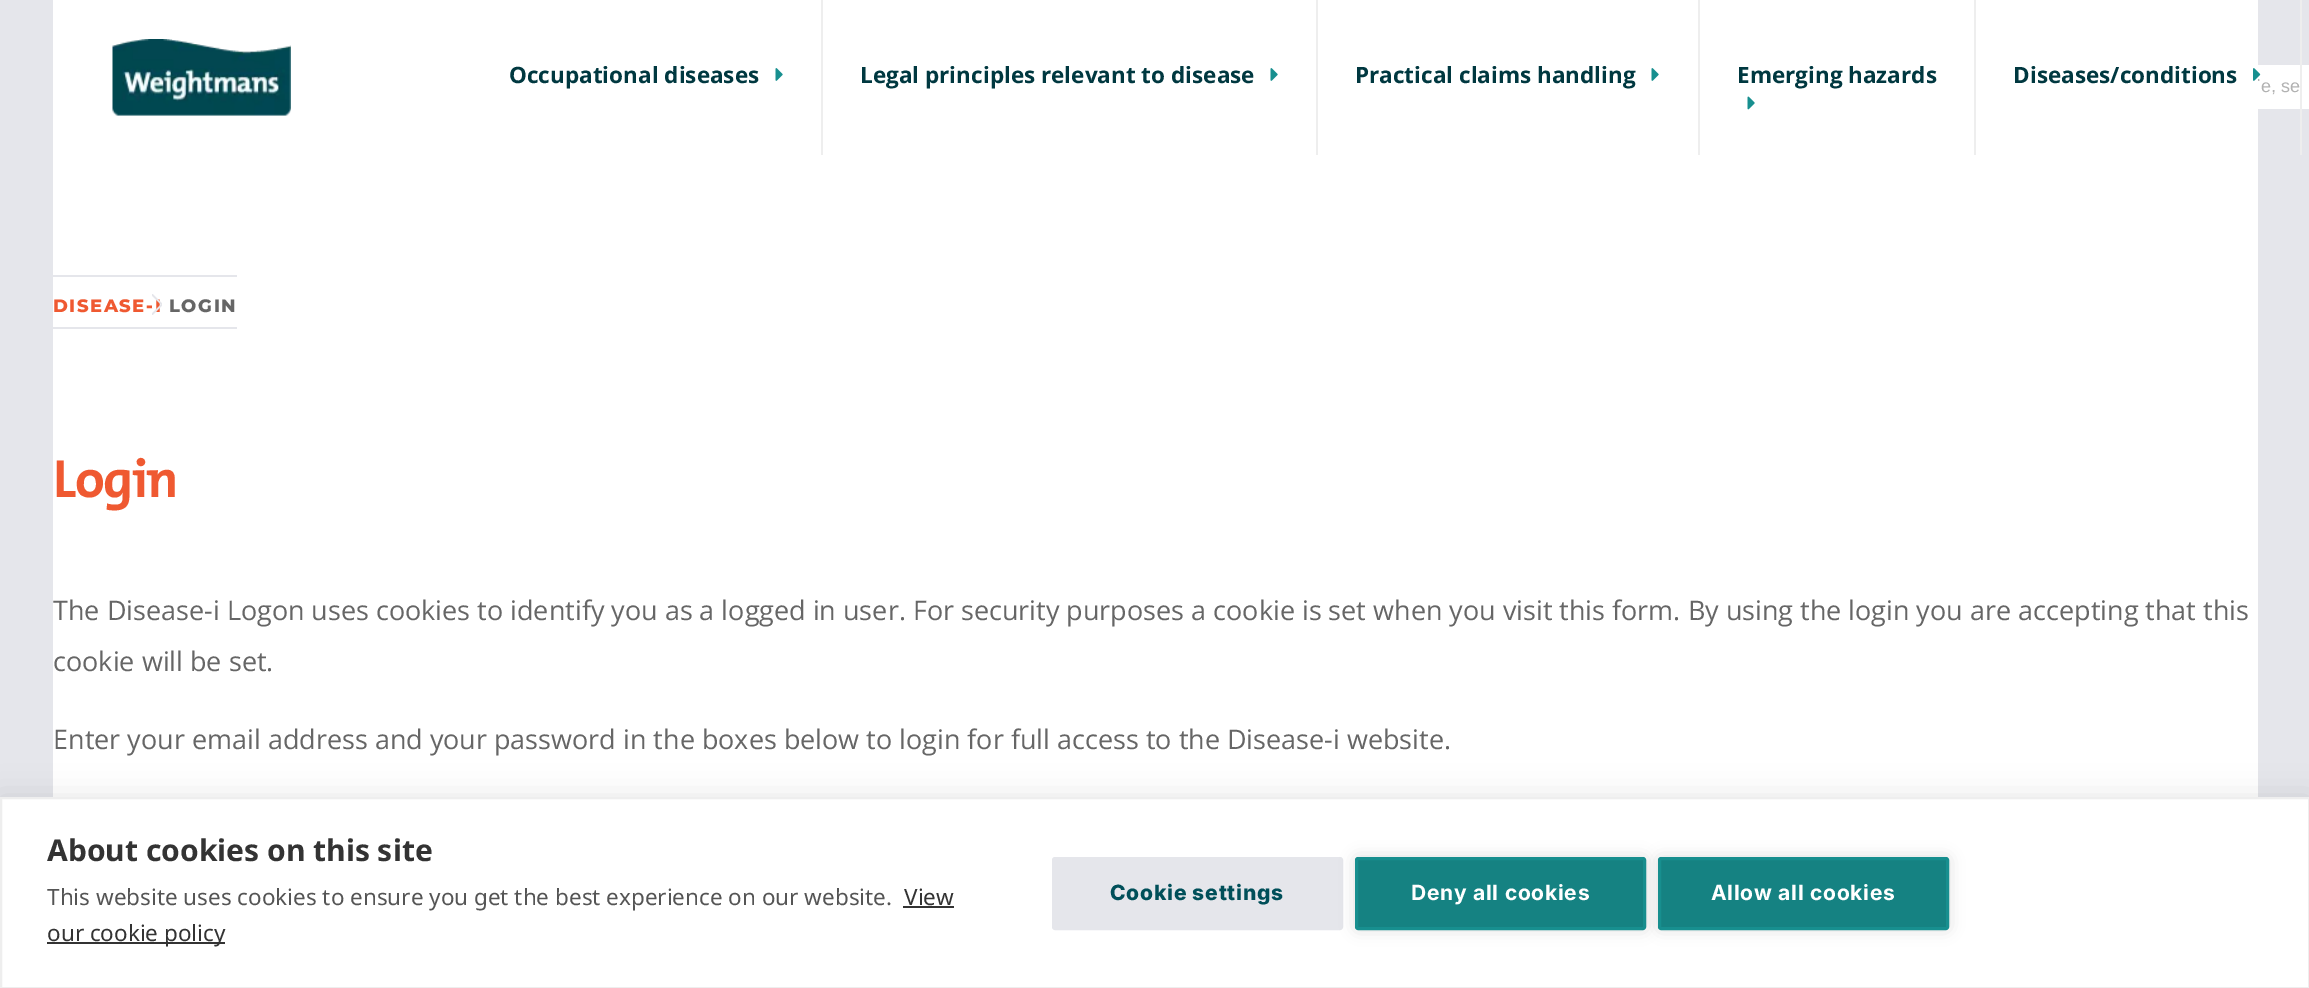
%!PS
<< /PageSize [2309 988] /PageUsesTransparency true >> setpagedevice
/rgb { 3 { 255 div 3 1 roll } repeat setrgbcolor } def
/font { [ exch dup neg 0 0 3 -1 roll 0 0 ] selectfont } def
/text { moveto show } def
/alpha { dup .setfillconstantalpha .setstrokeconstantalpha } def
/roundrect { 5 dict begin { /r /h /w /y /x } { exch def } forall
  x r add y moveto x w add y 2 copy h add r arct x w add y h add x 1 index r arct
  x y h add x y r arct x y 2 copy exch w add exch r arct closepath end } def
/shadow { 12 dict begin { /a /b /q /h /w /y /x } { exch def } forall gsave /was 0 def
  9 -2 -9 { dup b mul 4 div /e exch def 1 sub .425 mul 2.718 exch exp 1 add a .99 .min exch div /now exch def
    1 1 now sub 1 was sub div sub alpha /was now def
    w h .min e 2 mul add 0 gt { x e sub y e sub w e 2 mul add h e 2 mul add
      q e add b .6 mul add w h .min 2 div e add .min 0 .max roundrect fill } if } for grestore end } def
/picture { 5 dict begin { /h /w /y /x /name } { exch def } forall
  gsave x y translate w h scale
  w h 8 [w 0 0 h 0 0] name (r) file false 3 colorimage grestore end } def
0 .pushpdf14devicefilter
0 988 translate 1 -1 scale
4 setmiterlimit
229 230 235 rgb
0 0 2309 988 rectfill
255 255 255 rgb
53 0 2205 797 rectfill
(img_01.rgb) 112 39 179 77 picture
238 238 238 rgb
821 0 2 155 rectfill
(img_02.rgb) 775 68 8 13 picture
1316 0 2 155 rectfill
(img_02.rgb) 1270 68 8 13 picture
1698 0 2 155 rectfill
(img_02.rgb) 1651 68 8 13 picture
1974 0 2 155 rectfill
(img_03.rgb) 1747 96 8 14 picture
255 255 255 rgb
2258 65 51 44 rectfill
238 238 238 rgb
2300 0 2 155 rectfill
(img_04.rgb) 2253 68 8 13 picture
229 230 235 rgb
53 275 184 2 rectfill
53 327 184 2 rectfill
0 0 0 rgb
0 797 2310 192 0 15 0.1 shadow
255 255 255 rgb
1 798 moveto 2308 0 rlineto 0 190 rlineto -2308 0 rlineto closepath gsave fill grestore
238 238 238 rgb
2 setlinewidth
stroke
51 51 51 rgb
903 906 51 2 rectfill
47 942 178 2 rectfill
229 230 235 rgb
1053.5 858.5 288 70 1.5 roundrect gsave fill grestore
3 setlinewidth
stroke
0 0 0 rgb
1355 857 291 73 3 7.5 0.12 shadow
21 130 130 rgb
1356.5 858.5 288 70 1.5 roundrect gsave fill grestore
23 143 143 rgb
stroke
0 0 0 rgb
1658 857 291 73 3 7.5 0.12 shadow
21 130 130 rgb
1659.5 858.5 288 70 1.5 roundrect gsave fill grestore
23 143 143 rgb
stroke
/OpenSans-Bold 22.5 font
0 56 64 rgb
(Occupational diseases) 509 83 text
(Legal principles relevant to disease) 860 83 text
(Practical claims handling) 1355 83 text
(Emerging hazards) 1737 83 text
(Diseases/conditions) 2013 83 text
/LiberationSans-Regular 18 font
178 178 178 rgb
(e, se) 2261 92 text
/Montserrat-ExtraBold 18 font
239 89 49 rgb
53 312 moveto 1.5 0 (DISEASE-I) ashow
gsave
152 294 10 21 rectclip
229 230 235 rgb
1.5 setlinewidth
2 setlinecap
152 294.5 moveto 9.5 9.5 rlineto 152 314.5 moveto 9.5 -9.5 rlineto stroke
grestore
102 102 102 rgb
169 312 moveto 1.5 0 (LOGIN) ashow
/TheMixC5-Bold 54 font
239 89 49 rgb
53 497 moveto -1.5 0 (Login) ashow
gsave
53 275 2205 699 rectclip
/OpenSans-Regular 27 font
102 102 102 rgb
(The Disease-i Logon uses cookies to identify you as a logged in user. For security purposes a cookie is set when you visit this form. By using the login you are accepting that this) 53 620 text
grestore
/OpenSans-Regular 27 font
102 102 102 rgb
(cookie will be set.) 53 671 text
(Enter your email address and your password in the boxes below to login for full access to the Disease-i website.) 53 749 text
/NotoSans-Bold 30 font
51 51 51 rgb
(About cookies on this site) 47 861 text
/NotoSans-Regular 22.5 font
85 85 85 rgb
(This website uses cookies to ensure you get the best experience on our website.) 47 905 text
51 51 51 rgb
(View) 904 905 text
(our cookie policy) 47 941 text
/Inter-ExtraBold 21 font
0 79 89 rgb
1110 900 moveto 0.75 0 (Cookie settings) ashow
/Inter-Bold 21 font
255 255 255 rgb
1411 900 moveto 0.75 0 (Deny all cookies) ashow
1711 900 moveto 0.75 0 (Allow all cookies) ashow
.poppdf14devicefilter showpage
